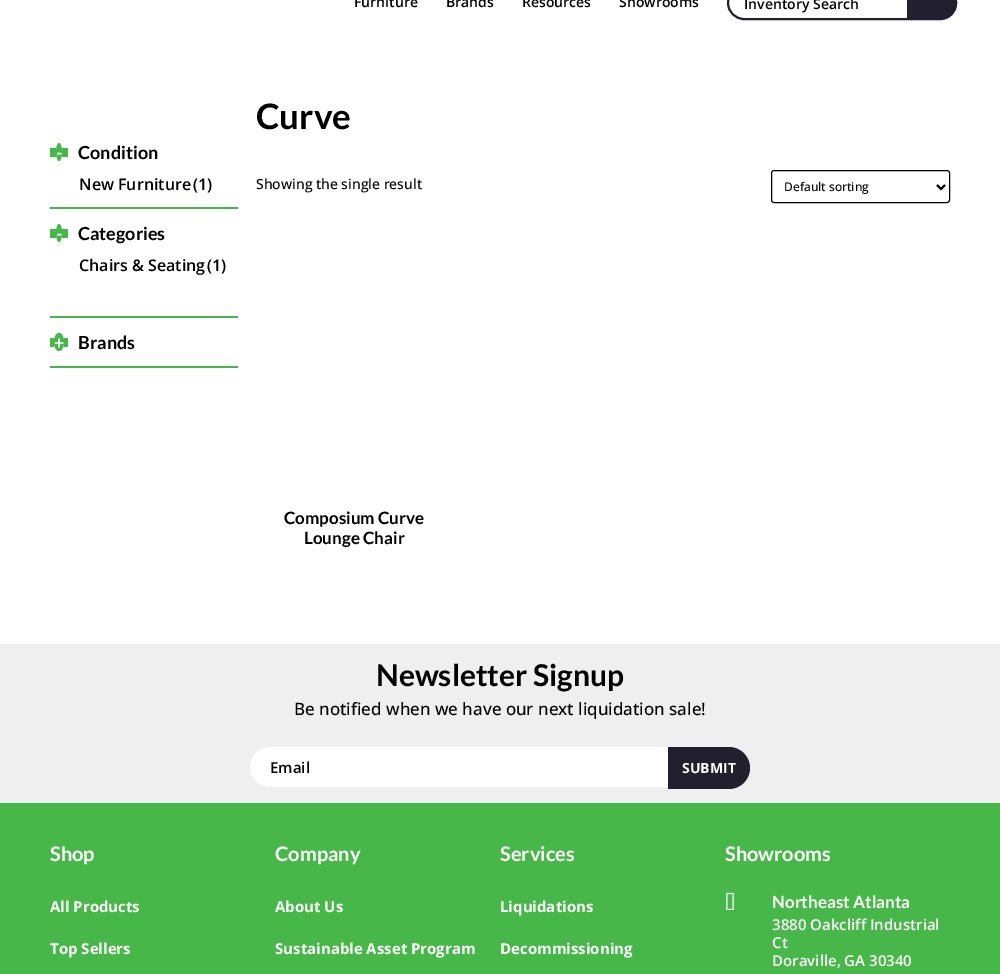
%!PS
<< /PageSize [1000 974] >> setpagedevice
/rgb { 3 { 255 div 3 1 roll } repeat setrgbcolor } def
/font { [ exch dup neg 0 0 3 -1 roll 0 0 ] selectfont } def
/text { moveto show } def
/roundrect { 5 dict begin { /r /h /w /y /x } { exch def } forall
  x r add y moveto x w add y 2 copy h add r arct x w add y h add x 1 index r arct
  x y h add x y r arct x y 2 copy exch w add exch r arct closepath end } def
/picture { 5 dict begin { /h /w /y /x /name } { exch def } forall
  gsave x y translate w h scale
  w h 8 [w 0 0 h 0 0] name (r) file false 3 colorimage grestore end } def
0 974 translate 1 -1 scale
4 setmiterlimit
255 255 255 rgb
0 0 1000 974 rectfill
34 32 47 rgb
2 setlinewidth
728 -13 228 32 16 roundrect stroke
907 -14 moveto 33 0 rlineto 9.5 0 17 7.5 17 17 rcurveto 0 9.5 -7.5 17 -17 17 rcurveto -33 0 rlineto closepath fill
71 183 73 rgb
50 207 188 2 rectfill
59 143 moveto 1.5 0 3 4 3 9 rcurveto 0 5 -1.5 9 -3 9 rcurveto -1.5 0 -3 -4 -3 -9 rcurveto 0 -5 1.5 -9 3 -9 rcurveto closepath fill
62 148 6 9 rectfill
50 148 6 9 rectfill
50 316 188 2 rectfill
59 224 moveto 1.5 0 3 4 3 9 rcurveto 0 5 -1.5 9 -3 9 rcurveto -1.5 0 -3 -4 -3 -9 rcurveto 0 -5 1.5 -9 3 -9 rcurveto closepath fill
62 229 6 9 rectfill
50 229 6 9 rectfill
50 366 188 2 rectfill
59 333 moveto 3 0 5 4 5 9 rcurveto 0 5 -2 9 -5 9 rcurveto -3 0 -5 -4 -5 -9 rcurveto 0 -5 2 -9 5 -9 rcurveto closepath fill
64 338 4 9 rectfill
50 338 4 9 rectfill
0 0 0 rgb
1 setlinewidth
771.5 170.5 178 32 2.5 roundrect stroke
2 setlinewidth
937 185 moveto 4 4 rlineto 4 -4 rlineto stroke
239 239 239 rgb
0 644 1000 159 rectfill
255 255 255 rgb
270 747 moveto 398 0 rlineto 0 40 rlineto -398 0 rlineto -11 0 -20 -9 -20 -20 rcurveto 0 -11 9 -20 20 -20 rcurveto closepath fill
34 32 47 rgb
668 747 moveto 61 0 rlineto 11.5 0 21 9.5 21 21 rcurveto 0 11.5 -9.5 21 -21 21 rcurveto -61 0 rlineto closepath fill
71 183 73 rgb
0 803 1000 171 rectfill
(img_01.rgb) 726 892 8 18 picture
/OpenSans-SemiBold 14 font
0 0 0 rgb
(Furniture) 354 7 text
(Brands) 446 7 text
(Resources) 522 7 text
(Showrooms) 619 7 text
(Inventory Search) 744 9 text
/Lato-Bold 18 font
255 255 255 rgb
(-) 56 159 text
0 0 0 rgb
(Condition) 78 159 text
/OpenSans-SemiBold 16 font
(New Furniture) 79 190 text
(\(1\)) 193 190 text
/Lato-Bold 18 font
255 255 255 rgb
(-) 56 240 text
0 0 0 rgb
(Categories) 78 240 text
/OpenSans-SemiBold 16 font
(Chairs & Seating) 79 271 text
(\(1\)) 207 271 text
/Lato-Bold 18 font
255 255 255 rgb
(+) 54 349 text
0 0 0 rgb
(Brands) 78 349 text
/Lato-Bold 35 font
(Curve) 256 129 text
/OpenSans-Medium 14 font
(Showing the single result) 256 189 text
/OpenSans-Medium 12 font
(Default sorting) 784 191 text
/Lato-Bold 17 font
(Composium Curve) 284 524 text
(Lounge Chair) 304 544 text
/Lato-Bold 30 font
(Newsletter Signup) 376 686 text
/OpenSans-Medium 17 font
(Be notified when we have our next liquidation sale!) 294 715 text
/OpenSans-SemiBold 15 font
(Email) 270 773 text
/OpenSans-Bold 14 font
255 255 255 rgb
(SUBMIT) 682 773 text
/Lato-Bold 20 font
(Shop) 50 861 text
/OpenSans-Bold 15 font
(All Products) 50 912 text
(Top Sellers) 50 954 text
/Lato-Bold 20 font
(Company) 275 861 text
/OpenSans-Bold 15 font
(About Us) 275 912 text
(Sustainable Asset Program) 275 954 text
/Lato-Bold 20 font
(Services) 500 861 text
/OpenSans-Bold 15 font
(Liquidations) 500 912 text
(Decommissioning) 500 954 text
/Lato-Bold 20 font
(Showrooms) 725 861 text
/Lato-Bold 17 font
(Northeast Atlanta) 772 908 text
/OpenSans-SemiBold 15 font
(3880 Oakcliff Industrial) 772 930 text
(Ct) 772 948 text
(Doraville, GA 30340) 772 966 text
showpage
